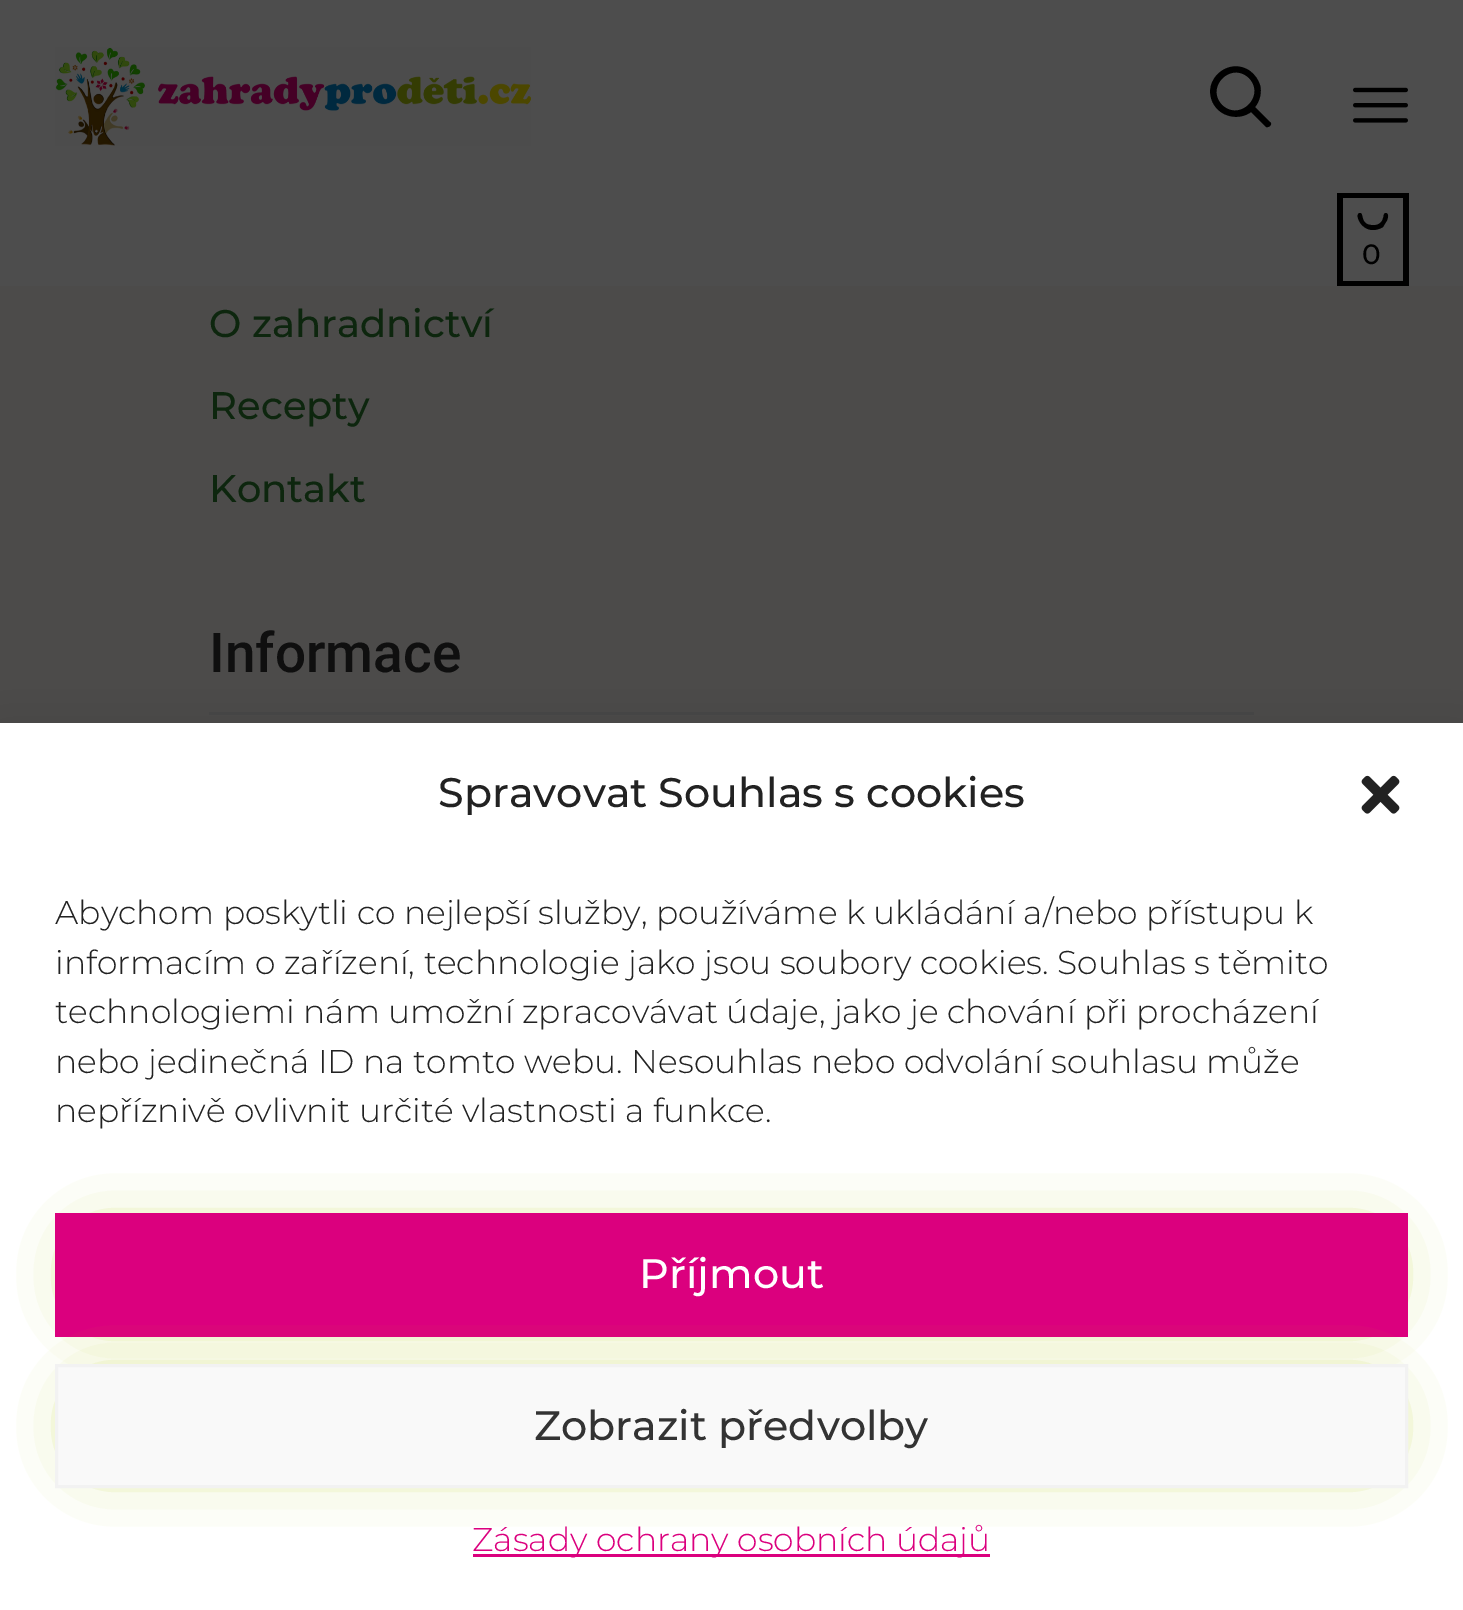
%!PS
<< /PageSize [1463 1610] /PageUsesTransparency true >> setpagedevice
/rgb { 3 { 255 div 3 1 roll } repeat setrgbcolor } def
/font { [ exch dup neg 0 0 3 -1 roll 0 0 ] selectfont } def
/text { moveto show } def
/alpha { dup .setfillconstantalpha .setstrokeconstantalpha } def
/roundrect { 5 dict begin { /r /h /w /y /x } { exch def } forall
  x r add y moveto x w add y 2 copy h add r arct x w add y h add x 1 index r arct
  x y h add x y r arct x y 2 copy exch w add exch r arct closepath end } def
/shadow { 12 dict begin { /a /b /q /h /w /y /x } { exch def } forall gsave /was 0 def
  9 -2 -9 { dup b mul 4 div /e exch def 1 sub .425 mul 2.718 exch exp 1 add a .99 .min exch div /now exch def
    1 1 now sub 1 was sub div sub alpha /was now def
    w h .min e 2 mul add 0 gt { x e sub y e sub w e 2 mul add h e 2 mul add
      q e add b .6 mul add w h .min 2 div e add .min 0 .max roundrect fill } if } for grestore end } def
/picture { 5 dict begin { /h /w /y /x /name } { exch def } forall
  gsave x y translate w h scale
  w h 8 [w 0 0 h 0 0] name (r) file false 3 colorimage grestore end } def
0 .pushpdf14devicefilter
0 1610 translate 1 -1 scale
4 setmiterlimit
76 75 74 rgb
0 0 1463 1610 rectfill
77 77 77 rgb
0 0 1463 286 rectfill
(img_01.rgb) 55 47 476 99 picture
0 0 0 rgb
1270 122 moveto -15 -15 rlineto 5 -6 7 -15 5 -22 rcurveto -2 -6 -5 -10 -10 -14 rcurveto -21 -15 -49 9 -37 32 rcurveto 7 14 26 18 38 9 rcurveto 15 15 rlineto 3 1 7 -3 4 -5 rcurveto closepath 1222 105 moveto -17 -18 9 -44 27 -27 rcurveto 17 18 -9 44 -27 27 rcurveto closepath fill
(img_02.rgb) 1353 87 55 36 picture
1337 193 moveto 0 93 rlineto 72 0 rlineto 0 -93 rlineto closepath 1403 281 moveto -60 0 rlineto 0 -83 rlineto 60 0 rlineto closepath 1373 230 moveto 3 0 7 -1 10 -3 rcurveto 3 -5 rlineto 1 -1 4 -8 0 -9 rcurveto -3 0 -2 4 -3 5 rcurveto -1 6 -7 8 -12 7 rcurveto -11 -1 -7 -12 -11 -12 rcurveto -6 0 0 17 13 17 rcurveto closepath fill
71 71 71 rgb
209 712 1045 3 rectfill
0 0 0 rgb
0 751 1463 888 0 27.5 0.19 shadow
255 255 255 rgb
0 723 1463 887 rectfill
(img_03.rgb) 1361 775 39 39 picture
174 201 11 rgb
94 1251 1276 47 0 34.5 1 shadow
219 0 126 rgb
55 1213 1353 124 rectfill
174 201 11 rgb
94 1403 1276 46 0 34.5 1 shadow
249 249 249 rgb
56.5 1365.5 moveto 1350 0 rlineto 0 121 rlineto -1350 0 rlineto closepath gsave fill grestore
242 242 242 rgb
3 setlinewidth
stroke
219 0 126 rgb
473 1554 517 3 rectfill
/Montserrat-Medium 28 font
0 0 0 rgb
(0) 1362 264 text
/Montserrat-Medium 38.5 font
13 38 14 rgb
(O zahradnictví) 209 337 text
(Recepty) 209 419 text
(Kontakt) 209 502 text
/Roboto-Medium 55 font
15 15 15 rgb
(Informace) 209 672 text
/Montserrat-Medium 41.25 font
34 34 34 rgb
(Spravovat Souhlas s cookies) 438 807 text
/Montserrat-Light 33 font
(Abychom poskytli co nejlepší služby, používáme k ukládání a/nebo přístupu k) 55 924 text
(informacím o zařízení, technologie jako jsou soubory cookies. Souhlas s těmito) 55 974 text
(technologiemi nám umožní zpracovávat údaje, jako je chování při procházení) 55 1023 text
(nebo jedinečná ID na tomto webu. Nesouhlas nebo odvolání souhlasu může) 55 1073 text
(nepříznivě ovlivnit určité vlastnosti a funkce.) 55 1122 text
/Montserrat-Medium 41.25 font
255 255 255 rgb
(Příjmout) 639 1288 text
51 51 51 rgb
(Zobrazit předvolby) 534 1440 text
/Montserrat-Light 33 font
219 0 126 rgb
(Zásady ochrany osobních údajů) 472 1551 text
.poppdf14devicefilter showpage
